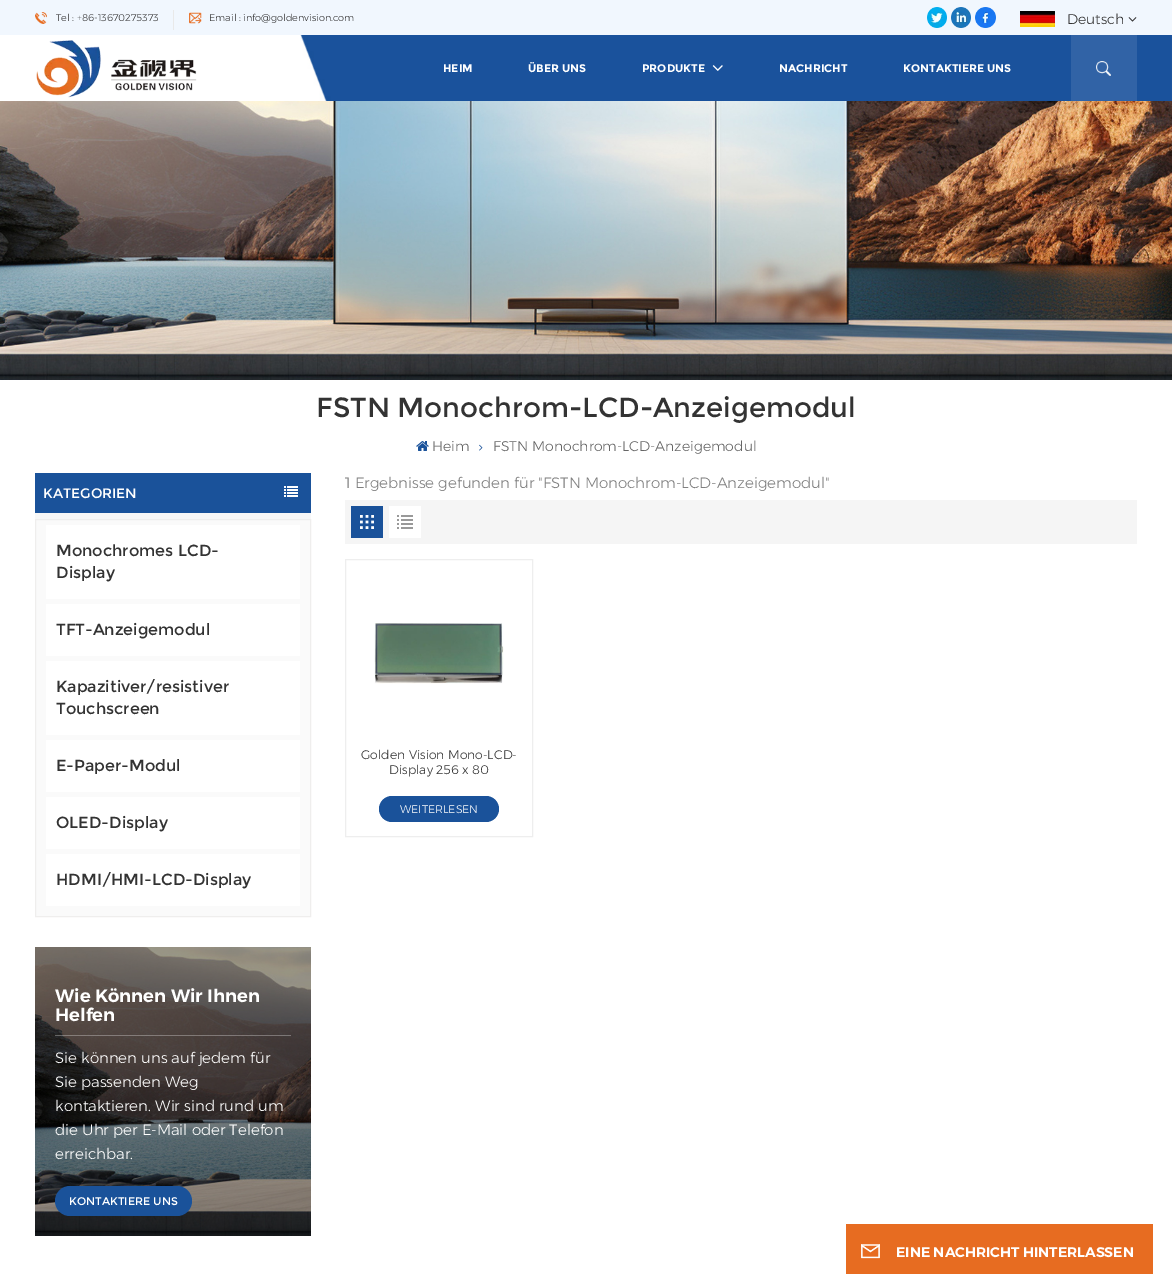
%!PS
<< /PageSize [1172 1274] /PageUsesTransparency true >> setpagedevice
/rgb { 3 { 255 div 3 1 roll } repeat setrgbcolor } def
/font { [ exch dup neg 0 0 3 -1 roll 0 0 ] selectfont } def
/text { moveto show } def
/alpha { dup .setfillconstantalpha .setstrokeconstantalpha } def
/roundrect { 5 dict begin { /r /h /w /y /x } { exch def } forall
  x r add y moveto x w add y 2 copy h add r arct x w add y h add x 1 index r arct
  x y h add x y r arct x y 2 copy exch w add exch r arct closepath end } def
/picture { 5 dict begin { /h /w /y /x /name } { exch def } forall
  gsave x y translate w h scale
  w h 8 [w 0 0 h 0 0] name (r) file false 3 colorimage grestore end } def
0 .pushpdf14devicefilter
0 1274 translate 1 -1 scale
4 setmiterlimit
255 255 255 rgb
0 0 1172 1274 rectfill
241 247 254 rgb
0 0 1172 35 rectfill
(img_01.rgb) 35 12 12 12 picture
233 233 233 rgb
173 10 1 20 rectfill
(img_02.rgb) 189 12 13 12 picture
(img_03.rgb) 927 7 20 21 picture
(img_04.rgb) 951 7 20 21 picture
(img_05.rgb) 975 7 21 21 picture
(img_06.rgb) 1020 11 35 16 picture
(img_07.rgb) 1128 17 9 5 picture
(img_08.rgb) 300 35 872 66 picture
(img_09.rgb) 36 40 161 58 picture
(img_10.rgb) 712 65 11 6 picture
49 99 166 rgb
1071 35 66 66 rectfill
(img_11.rgb) 1096 61 15 15 picture
(img_12.rgb) 0 101 1172 279 picture
(img_13.rgb) 416 441 13 10 picture
(img_14.rgb) 479 444 4 7 picture
247 247 247 rgb
35 513 276 6 rectfill
26 82 154 rgb
35 473 276 40 rectfill
(img_15.rgb) 284 486 14 11 picture
250 250 250 rgb
35.5 519.5 moveto 275 0 rlineto 0 397 rlineto -275 0 rlineto closepath gsave fill grestore
239 238 237 rgb
stroke
255 255 255 rgb
46 525 254 74 rectfill
46 604 254 52 rectfill
46 661 254 74 rectfill
46 740 254 52 rectfill
46 797 254 52 rectfill
46 854 254 52 rectfill
(img_16.rgb) 35 947 276 289 picture
0.3 alpha
55 1035 236 1 rectfill
1 alpha
26 82 154 rgb
55 1186 137 30 15 roundrect fill
245 245 245 rgb
345 500 792 44 rectfill
26 82 154 rgb
351 506 32 32 rectfill
(img_17.rgb) 360 515 14 14 picture
255 255 255 rgb
389 506 32 32 rectfill
(img_18.rgb) 397 515 16 14 picture
238 238 238 rgb
345.5 559.5 187 277 rectstroke
(img_19.rgb) 374 623 130 61 picture
26 82 154 rgb
379 796 120 26 13 roundrect fill
231 108 33 rgb
846 1224 307 50 rectfill
(img_20.rgb) 861 1244 19 15 picture
/Montserrat-Light 9.7 font
51 51 51 rgb
(Tel : +86-13670275373) 56 21 text
(Email : info@goldenvision.com) 209 21 text
/Montserrat-Light 14 font
(Deutsch) 1067 24 text
/Montserrat-Bold 11 font
255 255 255 rgb
(HEIM) 443 72 text
(ÜBER UNS) 528 72 text
(PRODUKTE) 642 72 text
(NACHRICHT) 779 72 text
(KONTAKTIERE UNS) 903 72 text
/Montserrat-Regular 27.6 font
51 51 51 rgb
(FSTN Monochrom-LCD-Anzeigemodul) 316 417 text
/Montserrat-Light 14 font
102 102 102 rgb
(Heim) 432 451 text
(FSTN Monochrom-LCD-Anzeigemodul) 493 451 text
/Montserrat-Regular 13.75 font
255 255 255 rgb
(KATEGORIEN) 43 498 text
/Montserrat-Regular 16 font
51 51 51 rgb
(Monochromes LCD-) 56 556 text
(Display) 56 578 text
(TFT-Anzeigemodul) 56 635 text
(Kapazitiver/resistiver) 56 692 text
(Touchscreen) 56 714 text
(E-Paper-Modul) 56 771 text
(OLED-Display) 56 828 text
(HDMI/HMI-LCD-Display) 56 885 text
/Montserrat-SemiBold 18 font
255 255 255 rgb
(Wie Können Wir Ihnen) 55 1002 text
(Helfen) 55 1021 text
/Montserrat-Light 15 font
(Sie können uns auf jedem für) 55 1063 text
(Sie passenden Weg) 55 1087 text
(kontaktieren. Wir sind rund um) 55 1111 text
(die Uhr per E-Mail oder Telefon) 55 1135 text
(erreichbar.) 55 1159 text
/Montserrat-Regular 11 font
(KONTAKTIERE UNS) 69 1205 text
/Montserrat-Light 15 font
128 128 128 rgb
(1 Ergebnisse gefunden für "FSTN Monochrom-LCD-Anzeigemodul") 345 488 text
/Montserrat-Light 12.4 font
51 51 51 rgb
(Golden Vision Mono-LCD-) 361 759 text
(Display 256 x 80) 389 774 text
/Montserrat-Light 11 font
255 255 255 rgb
(WEITERLESEN) 400 813 text
/Montserrat-SemiBold 14 font
(EINE NACHRICHT HINTERLASSEN) 896 1257 text
.poppdf14devicefilter showpage
